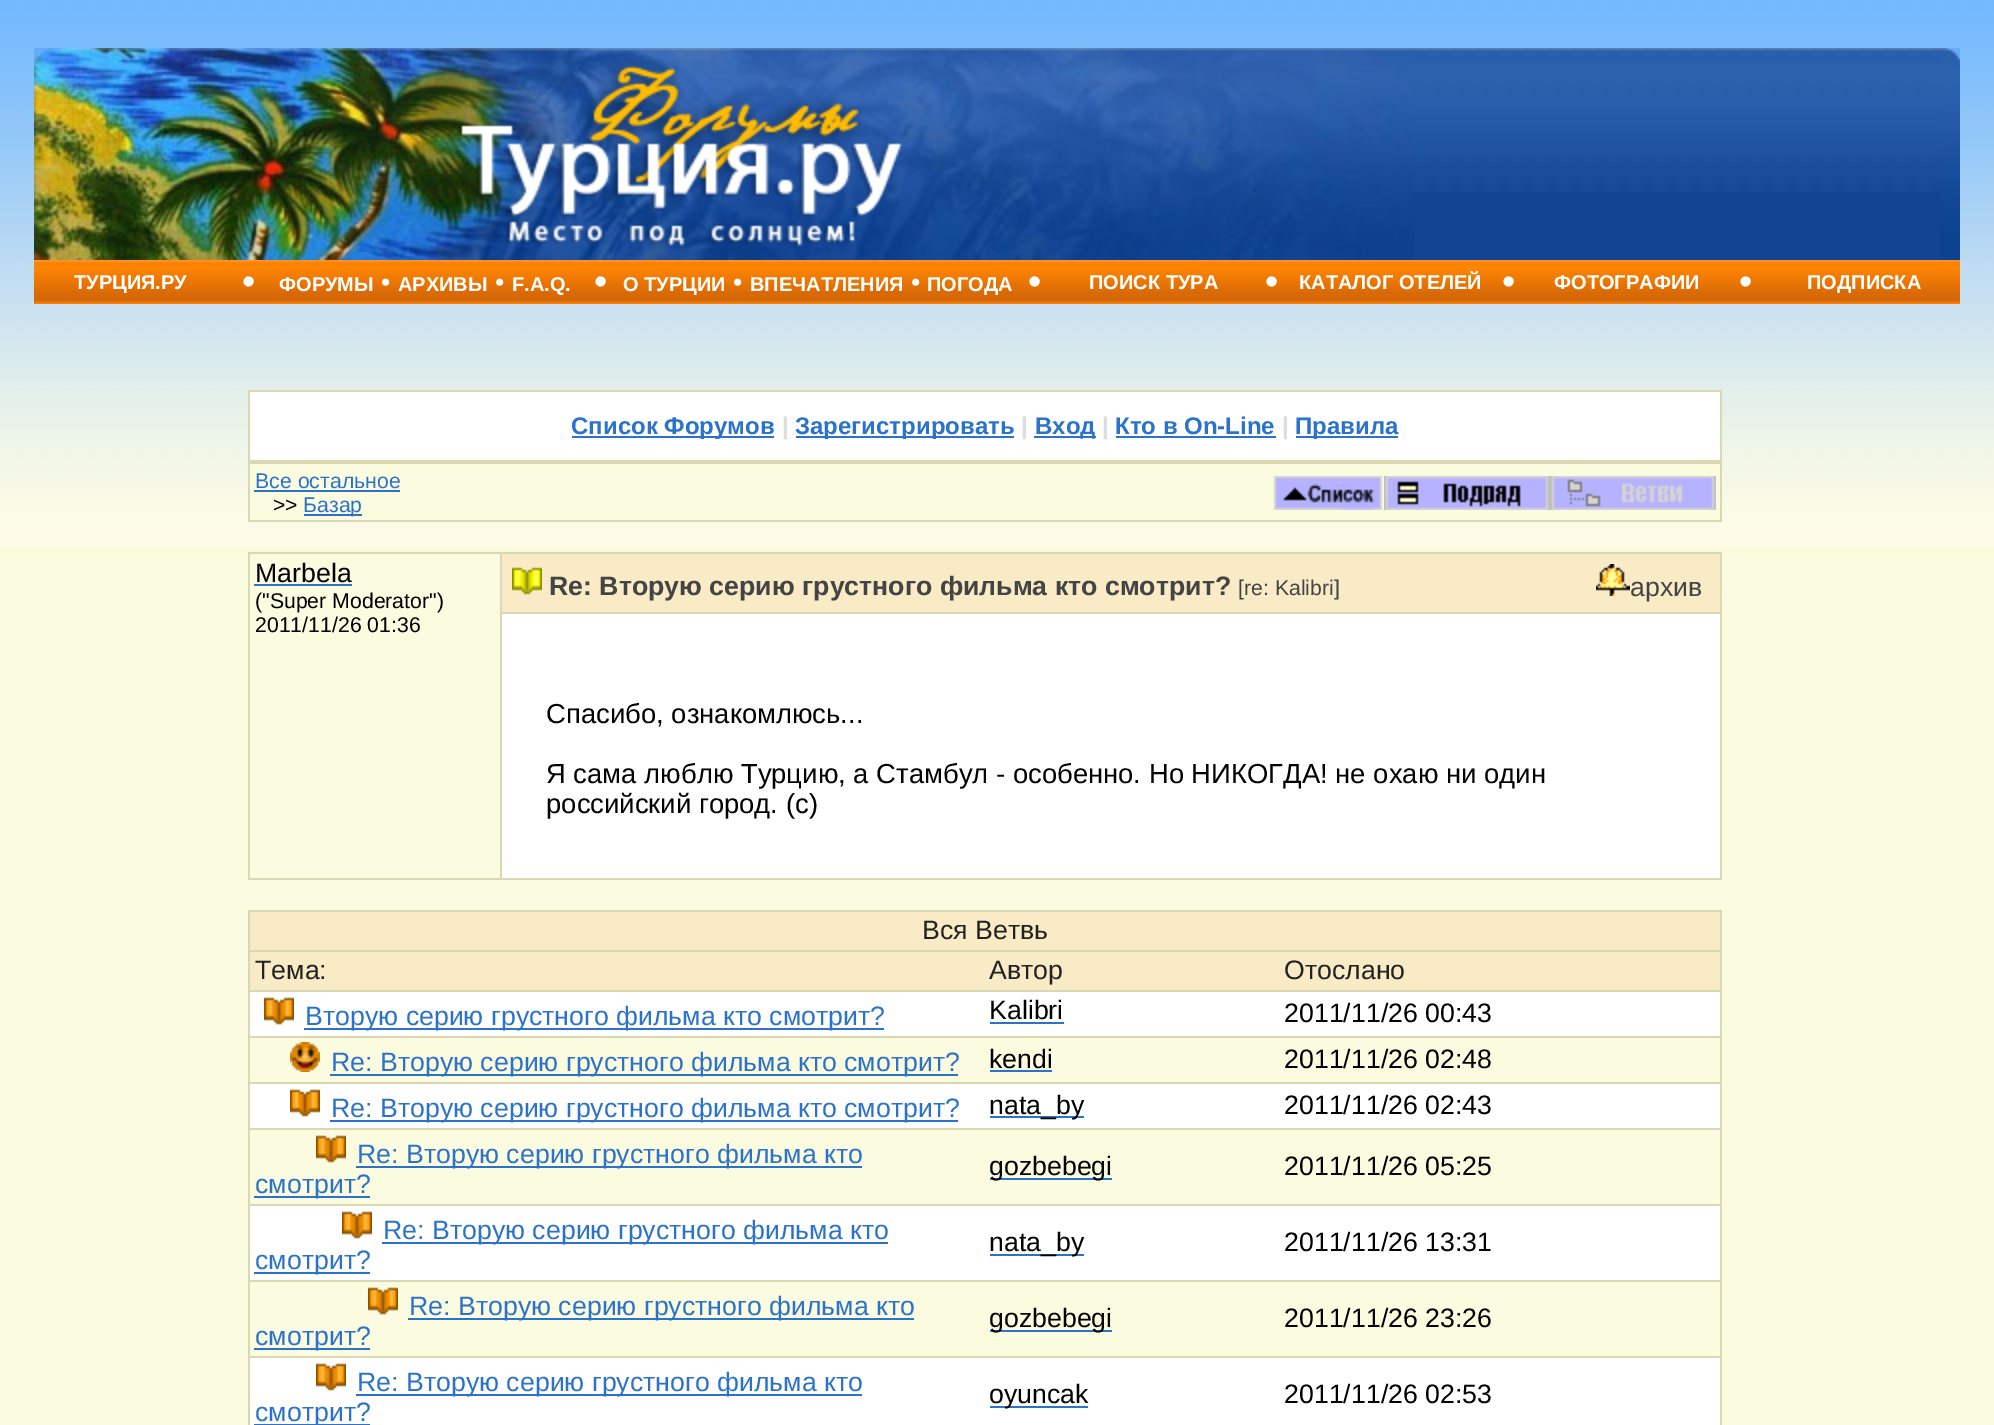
%!PS
<< /PageSize [1994 1425] >> setpagedevice
/rgb { 3 { 255 div 3 1 roll } repeat setrgbcolor } def
/font { [ exch dup neg 0 0 3 -1 roll 0 0 ] selectfont } def
/text { moveto show } def
/picture { 5 dict begin { /h /w /y /x /name } { exch def } forall
  gsave x y translate w h scale
  w h 8 [w 0 0 h 0 0] name (r) file false 3 colorimage grestore end } def
0 1425 translate 1 -1 scale
4 setmiterlimit
251 251 223 rgb
0 0 1994 1425 rectfill
(img_01.rgb) 0 0 1994 546 picture
19 68 147 rgb
1414 192 526 68 rectfill
(img_02.rgb) 1414 48 526 144 picture
(img_03.rgb) 34 48 1380 212 picture
(img_04.rgb) 457 58 446 190 picture
(img_05.rgb) 1940 48 20 212 picture
(img_06.rgb) 34 260 1926 44 picture
216 216 179 rgb
248 390 1474 132 rectfill
255 255 255 rgb
250 392 1470 68 rectfill
43 115 202 rgb
572 436 202 2 rectfill
796 436 218 2 rectfill
1034 436 62 2 rectfill
1116 436 160 2 rectfill
1296 436 102 2 rectfill
251 251 223 rgb
250 464 1470 56 rectfill
43 115 202 rgb
254 490 146 2 rectfill
304 514 58 2 rectfill
(img_07.rgb) 1273 476 110 34 picture
(img_08.rgb) 1384 476 166 34 picture
(img_09.rgb) 1550 476 166 34 picture
216 216 179 rgb
248 552 1474 328 rectfill
251 251 223 rgb
250 554 250 324 rectfill
43 115 202 rgb
254 584 98 2 rectfill
248 235 198 rgb
502 554 1218 58 rectfill
(img_10.rgb) 512 567 30 28 picture
(img_11.rgb) 1596 564 34 32 picture
255 255 255 rgb
502 614 1218 264 rectfill
216 216 179 rgb
248 910 1474 515 rectfill
248 235 198 rgb
250 912 1470 38 rectfill
250 952 1470 38 rectfill
255 255 255 rgb
250 992 1470 44 rectfill
(img_12.rgb) 264 997 30 28 picture
43 115 202 rgb
304 1028 580 2 rectfill
990 1022 74 2 rectfill
251 251 223 rgb
250 1038 1470 44 rectfill
(img_13.rgb) 290 1042 30 30 picture
43 115 202 rgb
330 1074 628 2 rectfill
990 1070 62 2 rectfill
255 255 255 rgb
250 1084 1470 44 rectfill
(img_12.rgb) 290 1089 30 28 picture
43 115 202 rgb
330 1120 628 2 rectfill
990 1116 94 2 rectfill
251 251 223 rgb
250 1130 1470 74 rectfill
(img_14.rgb) 316 1135 30 28 picture
43 115 202 rgb
356 1166 506 2 rectfill
254 1196 116 2 rectfill
990 1178 122 2 rectfill
255 255 255 rgb
250 1206 1470 74 rectfill
(img_12.rgb) 342 1211 30 28 picture
43 115 202 rgb
382 1242 506 2 rectfill
254 1272 116 2 rectfill
990 1254 94 2 rectfill
251 251 223 rgb
250 1282 1470 74 rectfill
(img_14.rgb) 368 1287 30 28 picture
43 115 202 rgb
408 1318 506 2 rectfill
254 1348 116 2 rectfill
990 1330 122 2 rectfill
255 255 255 rgb
250 1358 1470 67 rectfill
(img_12.rgb) 316 1363 30 28 picture
43 115 202 rgb
356 1394 506 2 rectfill
254 1424 116 1 rectfill
990 1406 98 2 rectfill
/LiberationSans-Bold 20 font
255 255 255 rgb
(ТУРЦИЯ.РУ) 74 289 text
/LiberationSans-Regular 38 font
(•) 242 294 text
/LiberationSans-Bold 20 font
(ФОРУМЫ) 279 291 text
/LiberationSans-Regular 26.7 font
(•) 381 291 text
/LiberationSans-Bold 20 font
(АРХИВЫ) 398 291 text
/LiberationSans-Regular 26.7 font
(•) 495 291 text
/LiberationSans-Bold 20 font
(F.A.Q.) 512 291 text
/LiberationSans-Regular 38 font
(•) 594 294 text
/LiberationSans-Bold 20 font
(О ТУРЦИИ) 623 291 text
/LiberationSans-Regular 26.7 font
(•) 733 291 text
/LiberationSans-Bold 20 font
(ВПЕЧАТЛЕНИЯ) 750 291 text
/LiberationSans-Regular 26.7 font
(•) 911 291 text
/LiberationSans-Bold 20 font
(ПОГОДА) 927 291 text
/LiberationSans-Regular 38 font
(•) 1028 294 text
/LiberationSans-Bold 20 font
(ПОИСК ТУРА) 1089 289 text
/LiberationSans-Regular 38 font
(•) 1265 294 text
/LiberationSans-Bold 20 font
(КАТАЛОГ ОТЕЛЕЙ) 1299 289 text
/LiberationSans-Regular 38 font
(•) 1502 294 text
/LiberationSans-Bold 20 font
(ФОТОГРАФИИ) 1554 289 text
/LiberationSans-Regular 38 font
(•) 1739 294 text
/LiberationSans-Bold 20 font
(ПОДПИСКА) 1807 289 text
/LiberationSans-Bold 24 font
43 115 202 rgb
(Список Форумов) 571 434 text
221 221 221 rgb
(|) 782 434 text
43 115 202 rgb
(Зарегистрировать) 795 434 text
221 221 221 rgb
(|) 1021 434 text
43 115 202 rgb
(Вход) 1035 434 text
221 221 221 rgb
(|) 1102 434 text
43 115 202 rgb
(Кто в On-Line) 1115 434 text
221 221 221 rgb
(|) 1282 434 text
43 115 202 rgb
(Правила) 1295 434 text
/LiberationSans-Regular 21.25 font
(Все остальное) 255 488 text
0 0 0 rgb
(>>) 273 512 text
43 115 202 rgb
(Базар) 303 512 text
/LiberationSans-Regular 26.7 font
0 0 0 rgb
(Marbela) 255 582 text
/LiberationSans-Regular 21.25 font
(\("Super Moderator"\)) 255 608 text
(2011/11/26 01:36) 255 632 text
/LiberationSans-Bold 26.7 font
68 68 68 rgb
(Re: Вторую серию грустного фильма кто смотрит?) 549 595 text
/LiberationSans-Regular 21.25 font
([re: Kalibri]) 1238 595 text
/LiberationSans-Regular 26.7 font
(архив) 1630 596 text
/LiberationSans-Regular 27.45 font
0 0 0 rgb
(Спасибо, ознакомлюсь...) 546 723 text
(Я сама люблю Турцию, а Стамбул - особенно. Но НИКОГДА! не охаю ни один) 546 783 text
(российский город. \(с\)) 546 813 text
/LiberationSans-Regular 26.7 font
34 34 34 rgb
(Вся Ветвь) 922 939 text
(Тема:) 255 979 text
(Автор) 989 979 text
(Отослано) 1284 979 text
43 115 202 rgb
(Вторую серию грустного фильма кто смотрит?) 305 1025 text
0 0 0 rgb
(Kalibri) 989 1019 text
(2011/11/26 00:43) 1284 1022 text
43 115 202 rgb
(Re: Вторую серию грустного фильма кто смотрит?) 331 1071 text
0 0 0 rgb
(kendi) 989 1068 text
(2011/11/26 02:48) 1284 1068 text
43 115 202 rgb
(Re: Вторую серию грустного фильма кто смотрит?) 331 1117 text
0 0 0 rgb
(nata_by) 989 1114 text
(2011/11/26 02:43) 1284 1114 text
43 115 202 rgb
(Re: Вторую серию грустного фильма кто) 357 1163 text
(смотрит?) 255 1193 text
0 0 0 rgb
(gozbebegi) 989 1175 text
(2011/11/26 05:25) 1284 1175 text
43 115 202 rgb
(Re: Вторую серию грустного фильма кто) 383 1239 text
(смотрит?) 255 1269 text
0 0 0 rgb
(nata_by) 989 1251 text
(2011/11/26 13:31) 1284 1251 text
43 115 202 rgb
(Re: Вторую серию грустного фильма кто) 409 1315 text
(смотрит?) 255 1345 text
0 0 0 rgb
(gozbebegi) 989 1327 text
(2011/11/26 23:26) 1284 1327 text
43 115 202 rgb
(Re: Вторую серию грустного фильма кто) 357 1391 text
(смотрит?) 255 1421 text
0 0 0 rgb
(oyuncak) 989 1403 text
(2011/11/26 02:53) 1284 1403 text
showpage
